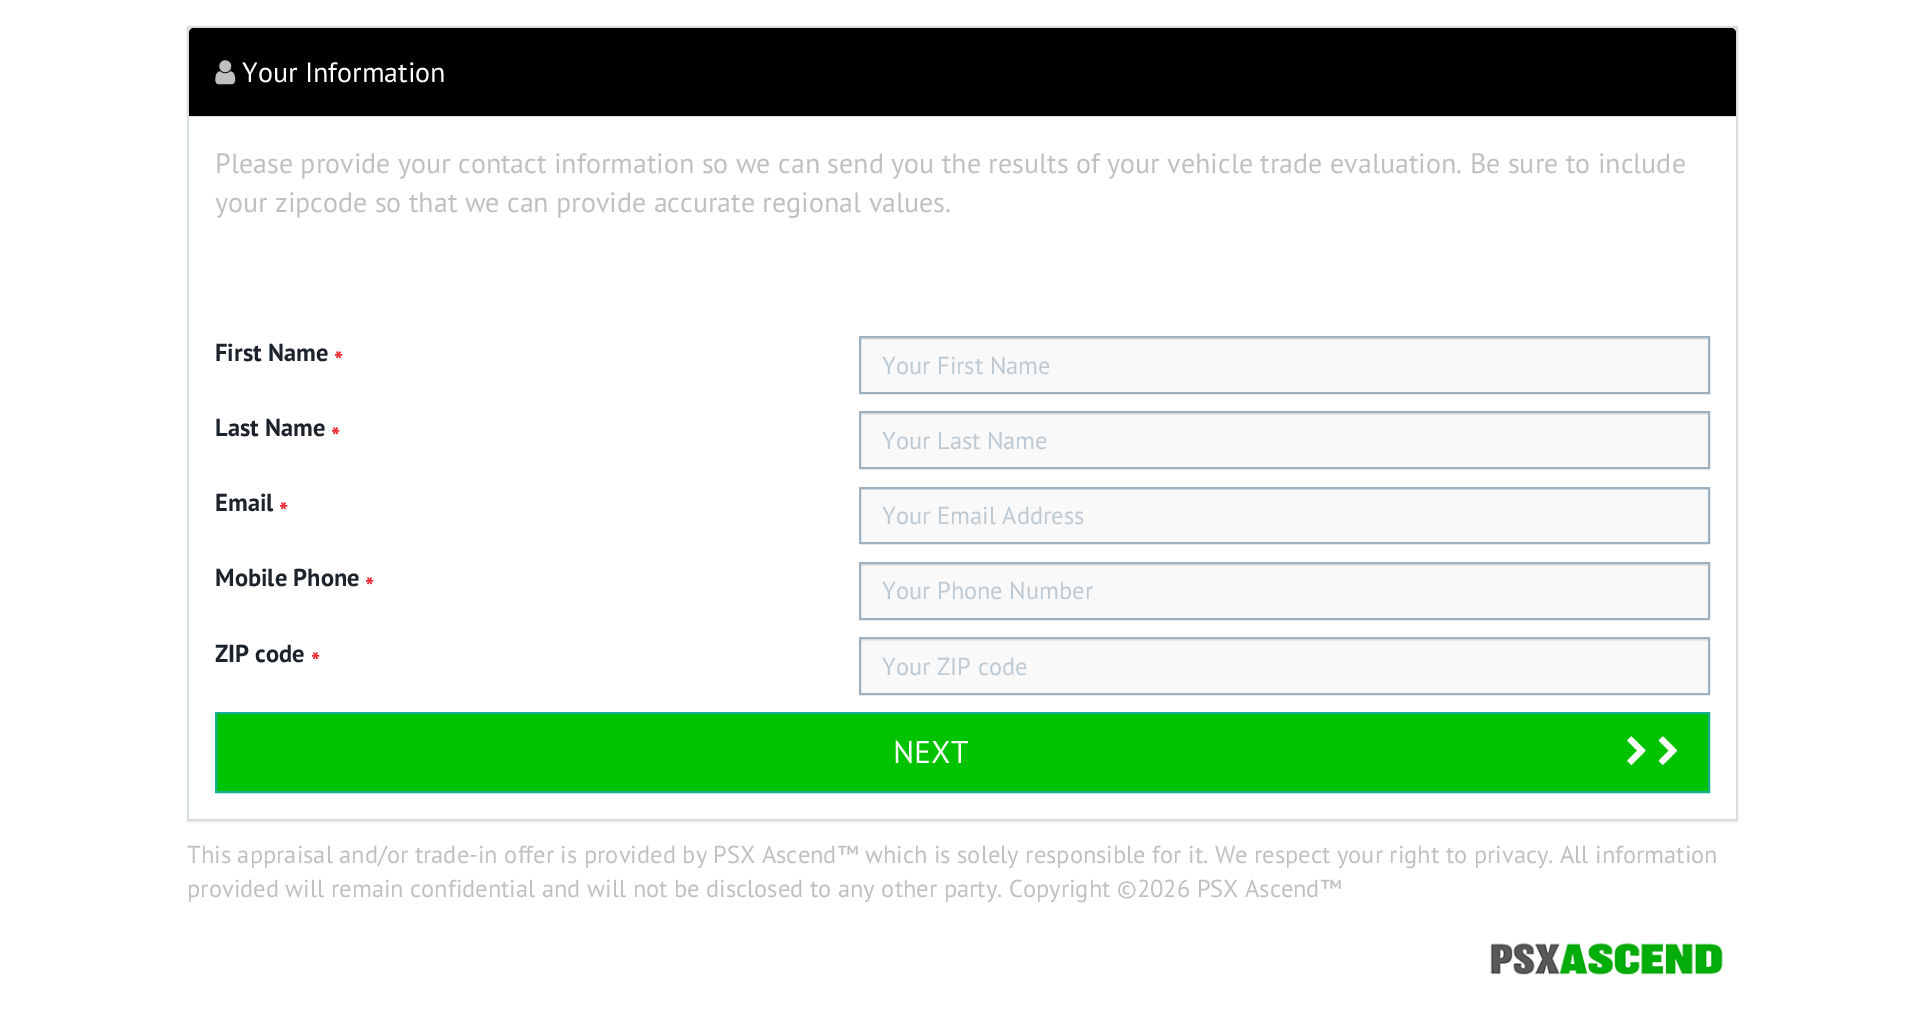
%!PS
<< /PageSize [1925 1020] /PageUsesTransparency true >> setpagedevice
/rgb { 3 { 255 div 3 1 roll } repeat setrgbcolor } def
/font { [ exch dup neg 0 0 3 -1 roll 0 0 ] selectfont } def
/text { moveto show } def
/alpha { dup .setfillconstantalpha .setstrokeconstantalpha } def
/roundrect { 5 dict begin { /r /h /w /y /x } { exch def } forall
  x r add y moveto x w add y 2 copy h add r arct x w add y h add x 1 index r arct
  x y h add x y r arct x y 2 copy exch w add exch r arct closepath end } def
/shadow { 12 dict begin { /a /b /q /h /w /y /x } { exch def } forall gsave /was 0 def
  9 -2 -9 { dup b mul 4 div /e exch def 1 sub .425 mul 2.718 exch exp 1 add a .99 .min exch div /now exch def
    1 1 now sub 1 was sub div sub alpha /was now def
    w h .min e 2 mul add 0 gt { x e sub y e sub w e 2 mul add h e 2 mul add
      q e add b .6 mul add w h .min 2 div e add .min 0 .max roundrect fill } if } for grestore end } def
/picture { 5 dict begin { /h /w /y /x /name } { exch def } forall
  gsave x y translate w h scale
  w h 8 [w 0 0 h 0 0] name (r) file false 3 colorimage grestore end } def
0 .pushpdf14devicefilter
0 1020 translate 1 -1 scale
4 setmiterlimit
255 255 255 rgb
0 0 1925 1020 rectfill
0 0 0 rgb
187 28 1551 795 0 1 0.05 shadow
255 255 255 rgb
189 28 1547 5 rectfill
216 221 225 rgb
2 setlinewidth
188 27 1549 793 rectstroke
0 0 0 rgb
194 28 moveto 1537 0 rlineto 3 0 5 2 5 5 rcurveto 0 84 rlineto -1547 0 rlineto 0 -84 rlineto 0 -3 2 -5 5 -5 rcurveto closepath fill
216 221 225 rgb
189 116 1547 1 rectfill
(img_01.rgb) 215 60 21 25 picture
255 255 255 rgb
189 117 1547 702 rectfill
249 249 249 rgb
861 340 847 52 rectfill
230 230 230 rgb
861 338 847 2 rectfill
158 177 192 rgb
860 337 849 56 rectstroke
249 249 249 rgb
861 415 847 52 rectfill
230 230 230 rgb
861 413 847 2 rectfill
158 177 192 rgb
860 412 849 56 rectstroke
249 249 249 rgb
861 490 847 52 rectfill
230 230 230 rgb
861 489 847 1 rectfill
158 177 192 rgb
860 488 849 55 rectstroke
249 249 249 rgb
861 566 847 52 rectfill
230 230 230 rgb
861 564 847 2 rectfill
158 177 192 rgb
860 563 849 56 rectstroke
249 249 249 rgb
861 641 847 52 rectfill
230 230 230 rgb
861 639 847 2 rectfill
158 177 192 rgb
860 638 849 56 rectstroke
0 195 0 rgb
216 713 moveto 1493 0 rlineto 0 79 rlineto -1493 0 rlineto closepath gsave fill grestore
24 175 142 rgb
stroke
(img_02.rgb) 1627 736 19 29 picture
(img_03.rgb) 1658 736 19 29 picture
(img_04.rgb) 1490 943 233 32 picture
/PTSans-Regular 28 font
255 255 255 rgb
(Your Information) 242 82 text
192 192 192 rgb
(Please provide your contact information so we can send you the results of your vehicle trade evaluation. Be sure to include) 215 173 text
(your zipcode so that we can provide accurate regional values.) 215 212 text
/PTSans-Bold 24.5 font
29 35 43 rgb
(First Name) 215 361 text
237 29 36 rgb
(*) 334 369 text
/PTSans-Regular 24.5 font
189 202 212 rgb
(Your First Name) 882 374 text
/PTSans-Bold 24.5 font
29 35 43 rgb
(Last Name) 215 436 text
237 29 36 rgb
(*) 331 445 text
/PTSans-Regular 24.5 font
189 202 212 rgb
(Your Last Name) 882 449 text
/PTSans-Bold 24.5 font
29 35 43 rgb
(Email) 215 511 text
237 29 36 rgb
(*) 279 520 text
/PTSans-Regular 24.5 font
189 202 212 rgb
(Your Email Address) 882 524 text
/PTSans-Bold 24.5 font
29 35 43 rgb
(Mobile Phone) 215 586 text
237 29 36 rgb
(*) 365 595 text
/PTSans-Regular 24.5 font
189 202 212 rgb
(Your Phone Number) 882 599 text
/PTSans-Bold 24.5 font
29 35 43 rgb
(ZIP code) 215 662 text
237 29 36 rgb
(*) 311 670 text
/PTSans-Regular 24.5 font
189 202 212 rgb
(Your ZIP code) 882 675 text
/PTSans-Regular 31.5 font
255 255 255 rgb
(NEXT) 893 763 text
/PTSans-Regular 24.5 font
192 192 192 rgb
(This appraisal and/or trade-in offer is provided by PSX Ascend™ which is solely responsible for it. We respect your right to privacy. All information) 187 863 text
(provided will remain confidential and will not be disclosed to any other party. Copyright ©2026 PSX Ascend™) 187 897 text
.poppdf14devicefilter showpage
